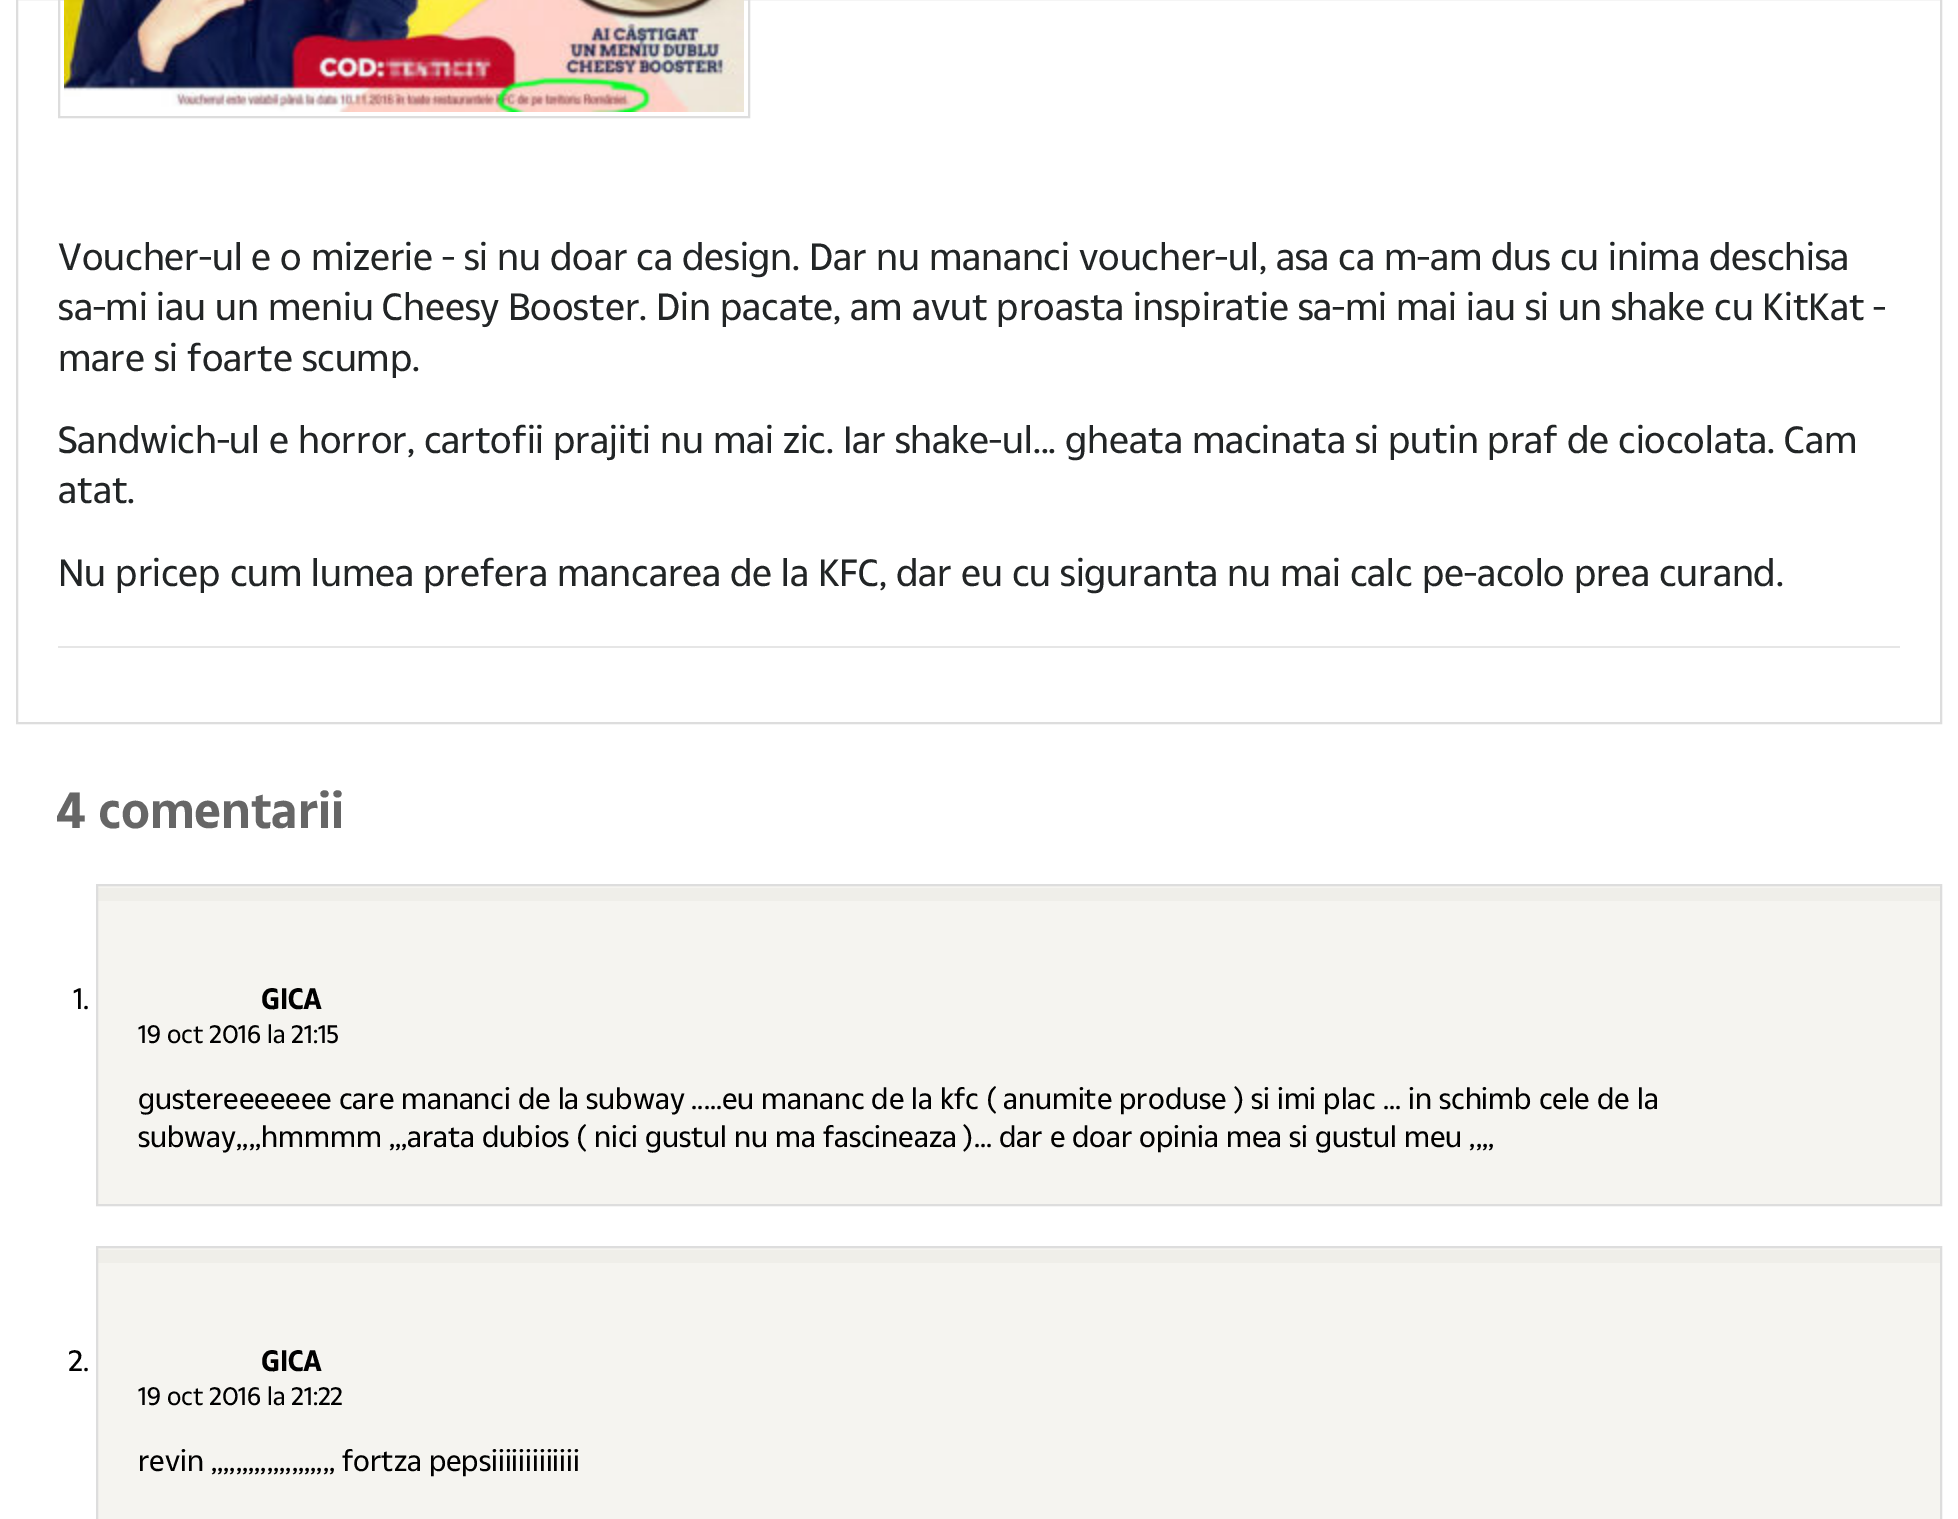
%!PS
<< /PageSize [1958 1519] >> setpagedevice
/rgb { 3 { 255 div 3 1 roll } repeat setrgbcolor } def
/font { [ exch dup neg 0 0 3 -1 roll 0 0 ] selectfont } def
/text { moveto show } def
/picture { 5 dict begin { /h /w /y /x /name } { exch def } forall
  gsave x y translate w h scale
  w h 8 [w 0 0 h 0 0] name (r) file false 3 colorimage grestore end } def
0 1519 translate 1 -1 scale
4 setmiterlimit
255 255 255 rgb
0 0 1958 1519 rectfill
221 221 221 rgb
2 setlinewidth
17 -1 1924 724 rectstroke
59 -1 690 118 rectstroke
(img_01.rgb) 64 0 680 112 picture
230 230 230 rgb
58 646 1842 2 rectfill
245 244 240 rgb
98 886 1842 318 rectfill
239 238 233 rgb
98 888 1842 13 rectfill
221 221 221 rgb
97 885 1844 320 rectstroke
245 244 240 rgb
98 1248 1842 271 rectfill
239 238 233 rgb
98 1250 1842 13 rectfill
221 221 221 rgb
97 1247 1844 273 rectstroke
/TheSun-Regular 36 font
34 37 38 rgb
(Voucher-ul e o mizerie - si nu doar ca design. Dar nu mananci voucher-ul, asa ca m-am dus cu inima deschisa) 58 270 text
(sa-mi iau un meniu Cheesy Booster. Din pacate, am avut proasta inspiratie sa-mi mai iau si un shake cu KitKat -) 58 320 text
(mare si foarte scump.) 58 371 text
(Sandwich-ul e horror, cartofii prajiti nu mai zic. Iar shake-ul... gheata macinata si putin praf de ciocolata. Cam) 58 453 text
(atat.) 58 503 text
(Nu pricep cum lumea prefera mancarea de la KFC, dar eu cu siguranta nu mai calc pe-acolo prea curand.) 58 586 text
/TheSun-Bold 48 font
102 102 102 rgb
(4 comentarii) 56 828 text
/TheSun-Regular 28 font
0 0 0 rgb
(1.) 73 1009 text
/TheSun-Bold 28 font
(GICA) 261 1009 text
/TheSun-Regular 24 font
(19 oct 2016 la 21:15) 138 1043 text
/TheSun-Regular 28 font
(gustereeeeeee care mananci de la subway .....eu mananc de la kfc \( anumite produse \) si imi plac ... in schimb cele de la) 138 1109 text
(subway,,,,hmmmm ,,,arata dubios \( nici gustul nu ma fascineaza \)... dar e doar opinia mea si gustul meu ,,,,) 138 1147 text
(2.) 68 1371 text
/TheSun-Bold 28 font
(GICA) 261 1371 text
/TheSun-Regular 24 font
(19 oct 2016 la 21:22) 138 1405 text
/TheSun-Regular 28 font
(revin ,,,,,,,,,,,,,,,,,,,, fortza pepsiiiiiiiiiiiii) 138 1471 text
showpage
